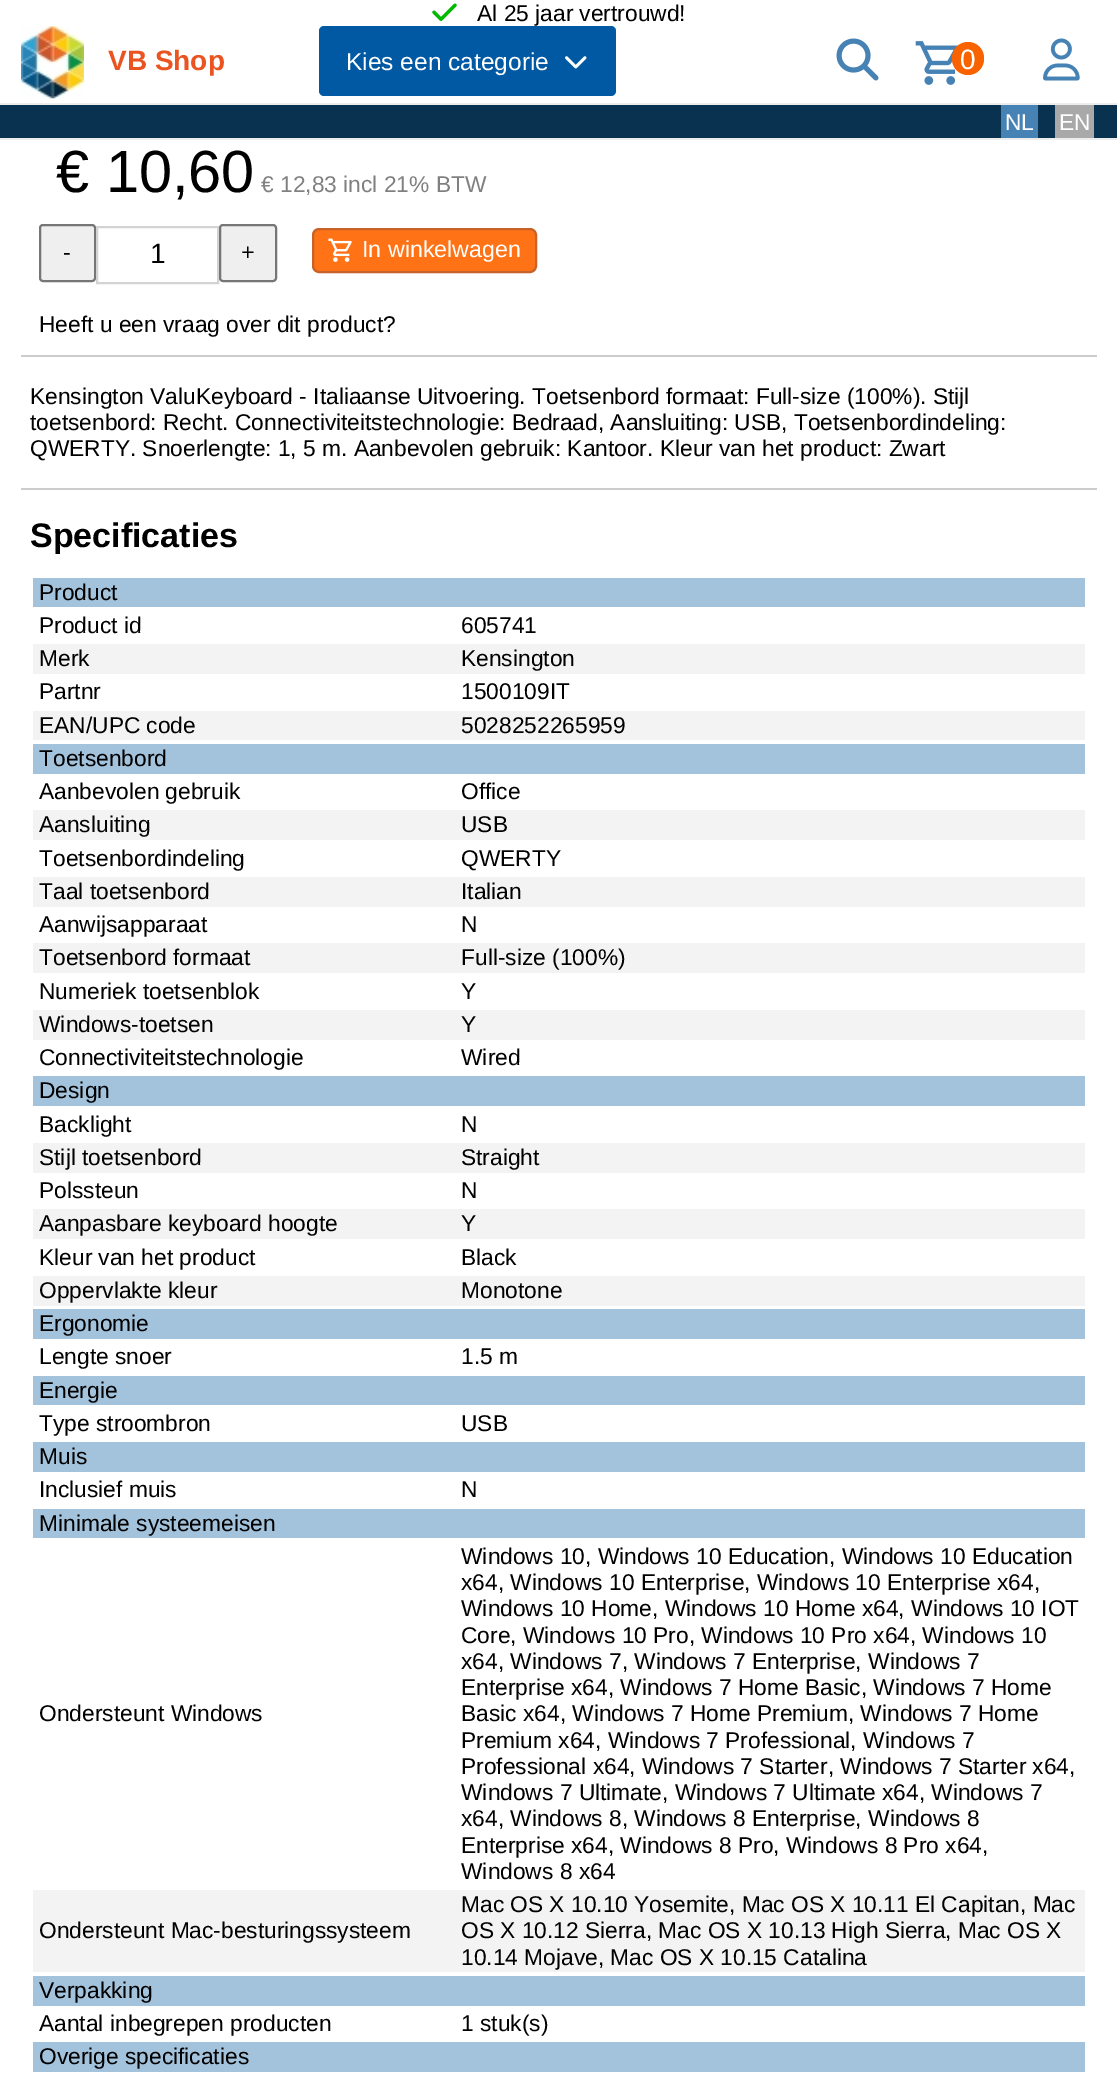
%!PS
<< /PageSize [1117 2081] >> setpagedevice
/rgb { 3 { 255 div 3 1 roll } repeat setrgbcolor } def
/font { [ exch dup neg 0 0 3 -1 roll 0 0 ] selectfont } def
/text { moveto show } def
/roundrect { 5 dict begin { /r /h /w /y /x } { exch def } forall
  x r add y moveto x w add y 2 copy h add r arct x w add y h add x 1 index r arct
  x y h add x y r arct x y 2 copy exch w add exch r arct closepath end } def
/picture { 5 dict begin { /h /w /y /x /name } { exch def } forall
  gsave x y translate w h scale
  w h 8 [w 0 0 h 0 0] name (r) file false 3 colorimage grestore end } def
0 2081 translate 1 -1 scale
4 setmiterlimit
255 255 255 rgb
0 0 1117 2081 rectfill
238 237 237 rgb
0 138 1117 2 rectfill
(img_01.rgb) 432 3 25 18 picture
0 103 1117 2 rectfill
(img_02.rgb) 21 26 63 73 picture
0 89 162 rgb
319 26 297 70 5 roundrect fill
(img_03.rgb) 565 56 22 13 picture
(img_04.rgb) 836 38 43 43 picture
(img_05.rgb) 915 41 44 44 picture
248 98 0 rgb
952 42 32 33 16 roundrect fill
(img_06.rgb) 1043 38 37 43 picture
8 50 80 rgb
0 105 1117 33 rectfill
70 130 180 rgb
1001 105 37 33 rectfill
169 169 169 rgb
1055 105 39 33 rectfill
239 239 239 rgb
40 225 55 56 3 roundrect gsave fill grestore
118 118 118 rgb
2 setlinewidth
stroke
211 211 211 rgb
97 227 121 56 rectstroke
239 239 239 rgb
220 225 56 56 3 roundrect gsave fill grestore
118 118 118 rgb
stroke
255 114 22 rgb
313 229 223 43 6 roundrect gsave fill grestore
200 98 40 rgb
stroke
(img_07.rgb) 328 238 24 24 picture
204 204 204 rgb
21 355 1076 2 rectfill
21 488 1076 2 rectfill
163 194 219 rgb
33 578 1052 29 rectfill
243 243 243 rgb
33 644 1052 30 rectfill
33 711 1052 29 rectfill
163 194 219 rgb
33 744 1052 30 rectfill
243 243 243 rgb
33 810 1052 30 rectfill
33 877 1052 30 rectfill
33 943 1052 30 rectfill
33 1010 1052 30 rectfill
163 194 219 rgb
33 1076 1052 30 rectfill
243 243 243 rgb
33 1143 1052 30 rectfill
33 1209 1052 30 rectfill
33 1276 1052 30 rectfill
163 194 219 rgb
33 1309 1052 30 rectfill
33 1376 1052 29 rectfill
33 1442 1052 30 rectfill
33 1509 1052 29 rectfill
243 243 243 rgb
33 1890 1052 82 rectfill
163 194 219 rgb
33 1976 1052 30 rectfill
33 2042 1052 30 rectfill
/LiberationSans-Regular 22.75 font
0 0 0 rgb
(Al 25 jaar vertrouwd!) 477 21 text
/LiberationSans-Bold 28 font
233 84 32 rgb
(VB Shop) 108 70 text
/LiberationSans-Regular 24.5 font
255 255 255 rgb
(Kies een categorie) 346 70 text
/LiberationSans-Regular 28 font
(0) 960 69 text
/LiberationSans-Regular 22.75 font
(NL) 1005 130 text
(EN) 1059 130 text
/LiberationSans-Regular 59.5 font
0 0 0 rgb
(€ 10,60) 56 192 text
/LiberationSans-Regular 22.75 font
128 128 128 rgb
(€ 12,83 incl 21% BTW) 261 192 text
/LiberationSans-Regular 23.25 font
0 0 0 rgb
(-) 63 260 text
/LiberationSans-Regular 28 font
(1) 150 263 text
/LiberationSans-Regular 23.25 font
(+) 241 260 text
255 255 255 rgb
(In winkelwagen) 362 257 text
/LiberationSans-Regular 22.75 font
0 0 0 rgb
(Heeft u een vraag over dit product?) 39 332 text
(Kensington ValuKeyboard - Italiaanse Uitvoering. Toetsenbord formaat: Full-size \(100%\). Stijl) 30 404 text
(toetsenbord: Recht. Connectiviteitstechnologie: Bedraad, Aansluiting: USB, Toetsenbordindeling:) 30 430 text
(QWERTY. Snoerlengte: 1, 5 m. Aanbevolen gebruik: Kantoor. Kleur van het product: Zwart) 30 456 text
/LiberationSans-Bold 34 font
(Specificaties) 30 547 text
/LiberationSans-Regular 22.75 font
(Product) 39 600 text
(Product id) 39 633 text
(605741) 461 633 text
(Merk) 39 666 text
(Kensington) 461 666 text
(Partnr) 39 699 text
(1500109IT) 461 699 text
(EAN/UPC code) 39 733 text
(5028252265959) 461 733 text
(Toetsenbord) 39 766 text
(Aanbevolen gebruik) 39 799 text
(Office) 461 799 text
(Aansluiting) 39 832 text
(USB) 461 832 text
(Toetsenbordindeling) 39 866 text
(QWERTY) 461 866 text
(Taal toetsenbord) 39 899 text
(Italian) 461 899 text
(Aanwijsapparaat) 39 932 text
(N) 461 932 text
(Toetsenbord formaat) 39 965 text
(Full-size \(100%\)) 461 965 text
(Numeriek toetsenblok) 39 999 text
(Y) 461 999 text
(Windows-toetsen) 39 1032 text
(Y) 461 1032 text
(Connectiviteitstechnologie) 39 1065 text
(Wired) 461 1065 text
(Design) 39 1098 text
(Backlight) 39 1132 text
(N) 461 1132 text
(Stijl toetsenbord) 39 1165 text
(Straight) 461 1165 text
(Polssteun) 39 1198 text
(N) 461 1198 text
(Aanpasbare keyboard hoogte) 39 1231 text
(Y) 461 1231 text
(Kleur van het product) 39 1265 text
(Black) 461 1265 text
(Oppervlakte kleur) 39 1298 text
(Monotone) 461 1298 text
(Ergonomie) 39 1331 text
(Lengte snoer) 39 1364 text
(1.5 m) 461 1364 text
(Energie) 39 1398 text
(Type stroombron) 39 1431 text
(USB) 461 1431 text
(Muis) 39 1464 text
(Inclusief muis) 39 1497 text
(N) 461 1497 text
(Minimale systeemeisen) 39 1531 text
(Ondersteunt Windows) 39 1721 text
(Windows 10, Windows 10 Education, Windows 10 Education) 461 1564 text
(x64, Windows 10 Enterprise, Windows 10 Enterprise x64,) 461 1590 text
(Windows 10 Home, Windows 10 Home x64, Windows 10 IOT) 461 1616 text
(Core, Windows 10 Pro, Windows 10 Pro x64, Windows 10) 461 1643 text
(x64, Windows 7, Windows 7 Enterprise, Windows 7) 461 1669 text
(Enterprise x64, Windows 7 Home Basic, Windows 7 Home) 461 1695 text
(Basic x64, Windows 7 Home Premium, Windows 7 Home) 461 1721 text
(Premium x64, Windows 7 Professional, Windows 7) 461 1748 text
(Professional x64, Windows 7 Starter, Windows 7 Starter x64,) 461 1774 text
(Windows 7 Ultimate, Windows 7 Ultimate x64, Windows 7) 461 1800 text
(x64, Windows 8, Windows 8 Enterprise, Windows 8) 461 1826 text
(Enterprise x64, Windows 8 Pro, Windows 8 Pro x64,) 461 1853 text
(Windows 8 x64) 461 1879 text
(Ondersteunt Mac-besturingssysteem) 39 1938 text
(Mac OS X 10.10 Yosemite, Mac OS X 10.11 El Capitan, Mac) 461 1912 text
(OS X 10.12 Sierra, Mac OS X 10.13 High Sierra, Mac OS X) 461 1938 text
(10.14 Mojave, Mac OS X 10.15 Catalina) 461 1965 text
(Verpakking) 39 1998 text
(Aantal inbegrepen producten) 39 2031 text
(1 stuk\(s\)) 461 2031 text
(Overige specificaties) 39 2064 text
showpage
